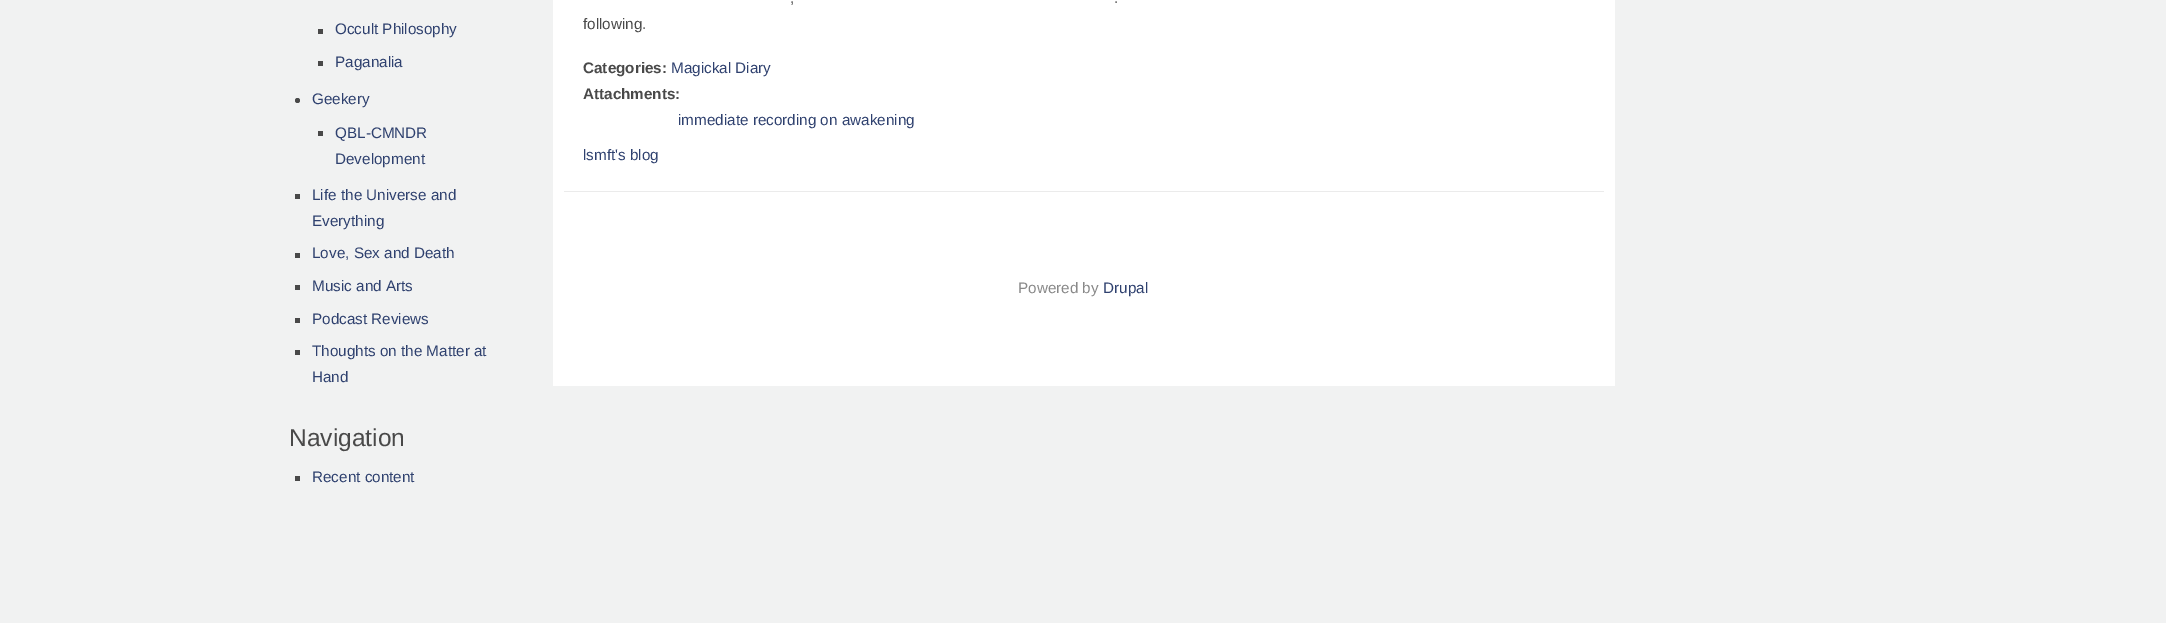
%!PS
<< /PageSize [2166 623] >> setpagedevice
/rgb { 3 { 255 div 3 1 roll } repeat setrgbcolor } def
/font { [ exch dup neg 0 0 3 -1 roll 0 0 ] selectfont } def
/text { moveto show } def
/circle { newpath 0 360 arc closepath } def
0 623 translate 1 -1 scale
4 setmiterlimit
241 242 242 rgb
0 0 2166 623 rectfill
73 73 73 rgb
318 29 5 5 rectfill
318 61 5 5 rectfill
297.5 100.5 2.5 circle fill
318 131 5 5 rectfill
295 194 5 5 rectfill
295 253 5 5 rectfill
295 285 5 5 rectfill
295 318 5 5 rectfill
295 350 5 5 rectfill
295 476 5 5 rectfill
255 255 255 rgb
553 0 1062 386 rectfill
235 235 235 rgb
564 191 1040 1 rectfill
/LiberationSans-Regular 15.25 font
47 65 111 rgb
(Occult Philosophy) 335 34 text
(Paganalia) 335 67 text
(Geekery) 312 104 text
(QBL-CMNDR) 335 138 text
(Development) 335 164 text
(Life the Universe and) 312 200 text
(Everything) 312 226 text
(Love, Sex and Death) 312 258 text
(Music and Arts) 312 291 text
(Podcast Reviews) 312 324 text
(Thoughts on the Matter at) 312 356 text
(Hand) 312 382 text
/LiberationSans-Regular 24.5 font
73 73 73 rgb
(Navigation) 289 446 text
/LiberationSans-Regular 15.25 font
47 65 111 rgb
(Recent content) 312 482 text
73 73 73 rgb
(,) 790 3 text
(.) 1114 3 text
(following.) 583 29 text
/LiberationSans-Bold 15.25 font
(Categories:) 583 73 text
/LiberationSans-Regular 15.25 font
47 65 111 rgb
(Magickal Diary) 671 73 text
/LiberationSans-Bold 15.25 font
73 73 73 rgb
(Attachments:) 583 99 text
/LiberationSans-Regular 15.25 font
47 65 111 rgb
(immediate recording on awakening) 678 125 text
(lsmft's blog) 583 160 text
137 137 137 rgb
(Powered by) 1018 293 text
47 65 111 rgb
(Drupal) 1103 293 text
showpage
